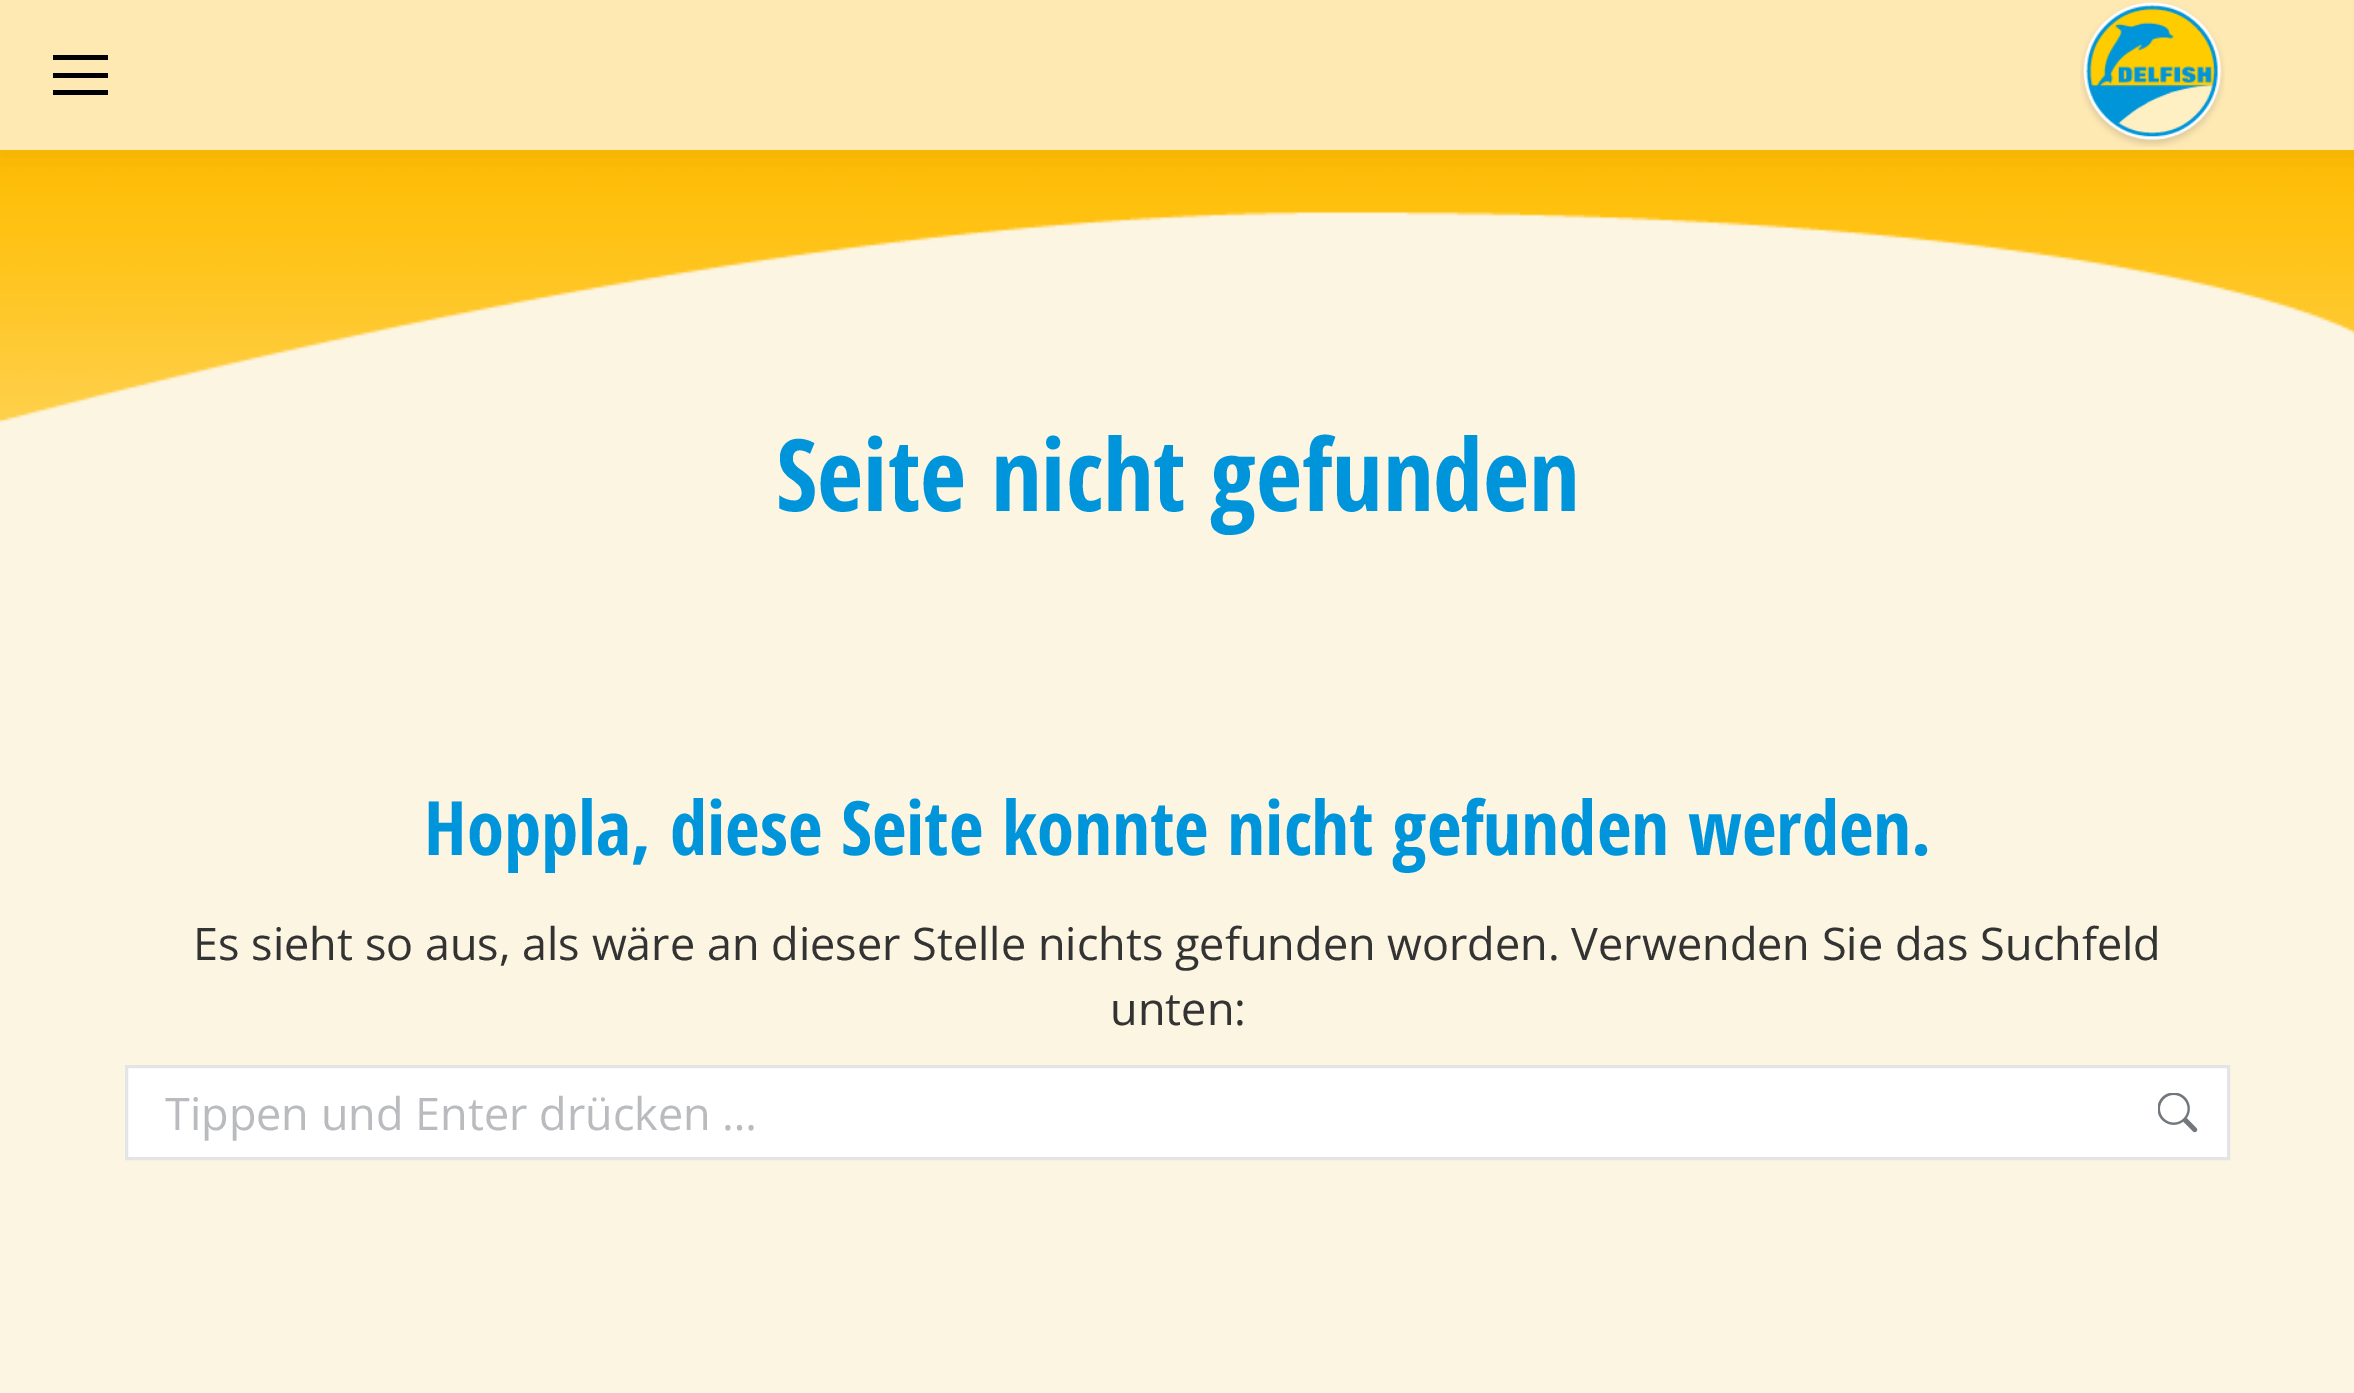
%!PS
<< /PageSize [2354 1393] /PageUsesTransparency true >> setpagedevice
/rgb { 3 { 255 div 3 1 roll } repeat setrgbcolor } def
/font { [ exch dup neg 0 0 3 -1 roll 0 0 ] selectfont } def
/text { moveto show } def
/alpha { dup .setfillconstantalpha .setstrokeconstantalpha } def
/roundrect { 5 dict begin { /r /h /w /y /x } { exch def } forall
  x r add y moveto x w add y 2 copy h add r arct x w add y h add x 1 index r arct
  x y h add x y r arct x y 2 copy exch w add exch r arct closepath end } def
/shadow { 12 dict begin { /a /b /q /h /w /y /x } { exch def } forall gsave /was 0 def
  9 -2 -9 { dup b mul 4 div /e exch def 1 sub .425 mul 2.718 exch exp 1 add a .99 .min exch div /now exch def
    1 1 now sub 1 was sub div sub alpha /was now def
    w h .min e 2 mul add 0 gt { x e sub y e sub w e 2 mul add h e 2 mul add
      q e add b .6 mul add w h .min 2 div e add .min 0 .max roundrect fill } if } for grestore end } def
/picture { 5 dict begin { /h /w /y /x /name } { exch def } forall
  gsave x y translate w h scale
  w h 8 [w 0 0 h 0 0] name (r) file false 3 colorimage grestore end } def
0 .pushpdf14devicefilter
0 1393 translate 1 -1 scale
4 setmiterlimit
252 245 226 rgb
0 0 2354 1393 rectfill
(img_02.rgb) 0 150 2354 274 picture
0 0 0 rgb
-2 -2 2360 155 0 19 0.07 shadow
255 233 179 rgb
0 0 2354 150 rectfill
0 0 0 rgb
53 55 55 5 rectfill
53 73 55 5 rectfill
53 90 55 5 rectfill
(img_01.rgb) 2080 2 145 145 picture
255 255 255 rgb
126.5 1066.5 moveto 2102 0 rlineto 0 92 rlineto -2102 0 rlineto closepath gsave fill grestore
227 228 229 rgb
3 setlinewidth
stroke
(img_03.rgb) 2158 1093 40 40 picture
/OpenSansCondensed-Bold 100 font
0 149 219 rgb
(Seite nicht gefunden) 776 511 text
/OpenSansCondensed-Bold 75 font
(Hoppla, diese Seite konnte nicht gefunden werden.) 424 855 text
/OpenSans-Regular 45 font
51 51 51 rgb
(Es sieht so aus, als wäre an dieser Stelle nichts gefunden worden. Verwenden Sie das Suchfeld) 193 960 text
(unten:) 1110 1025 text
185 187 190 rgb
(Tippen und Enter drücken …) 165 1130 text
.poppdf14devicefilter showpage
